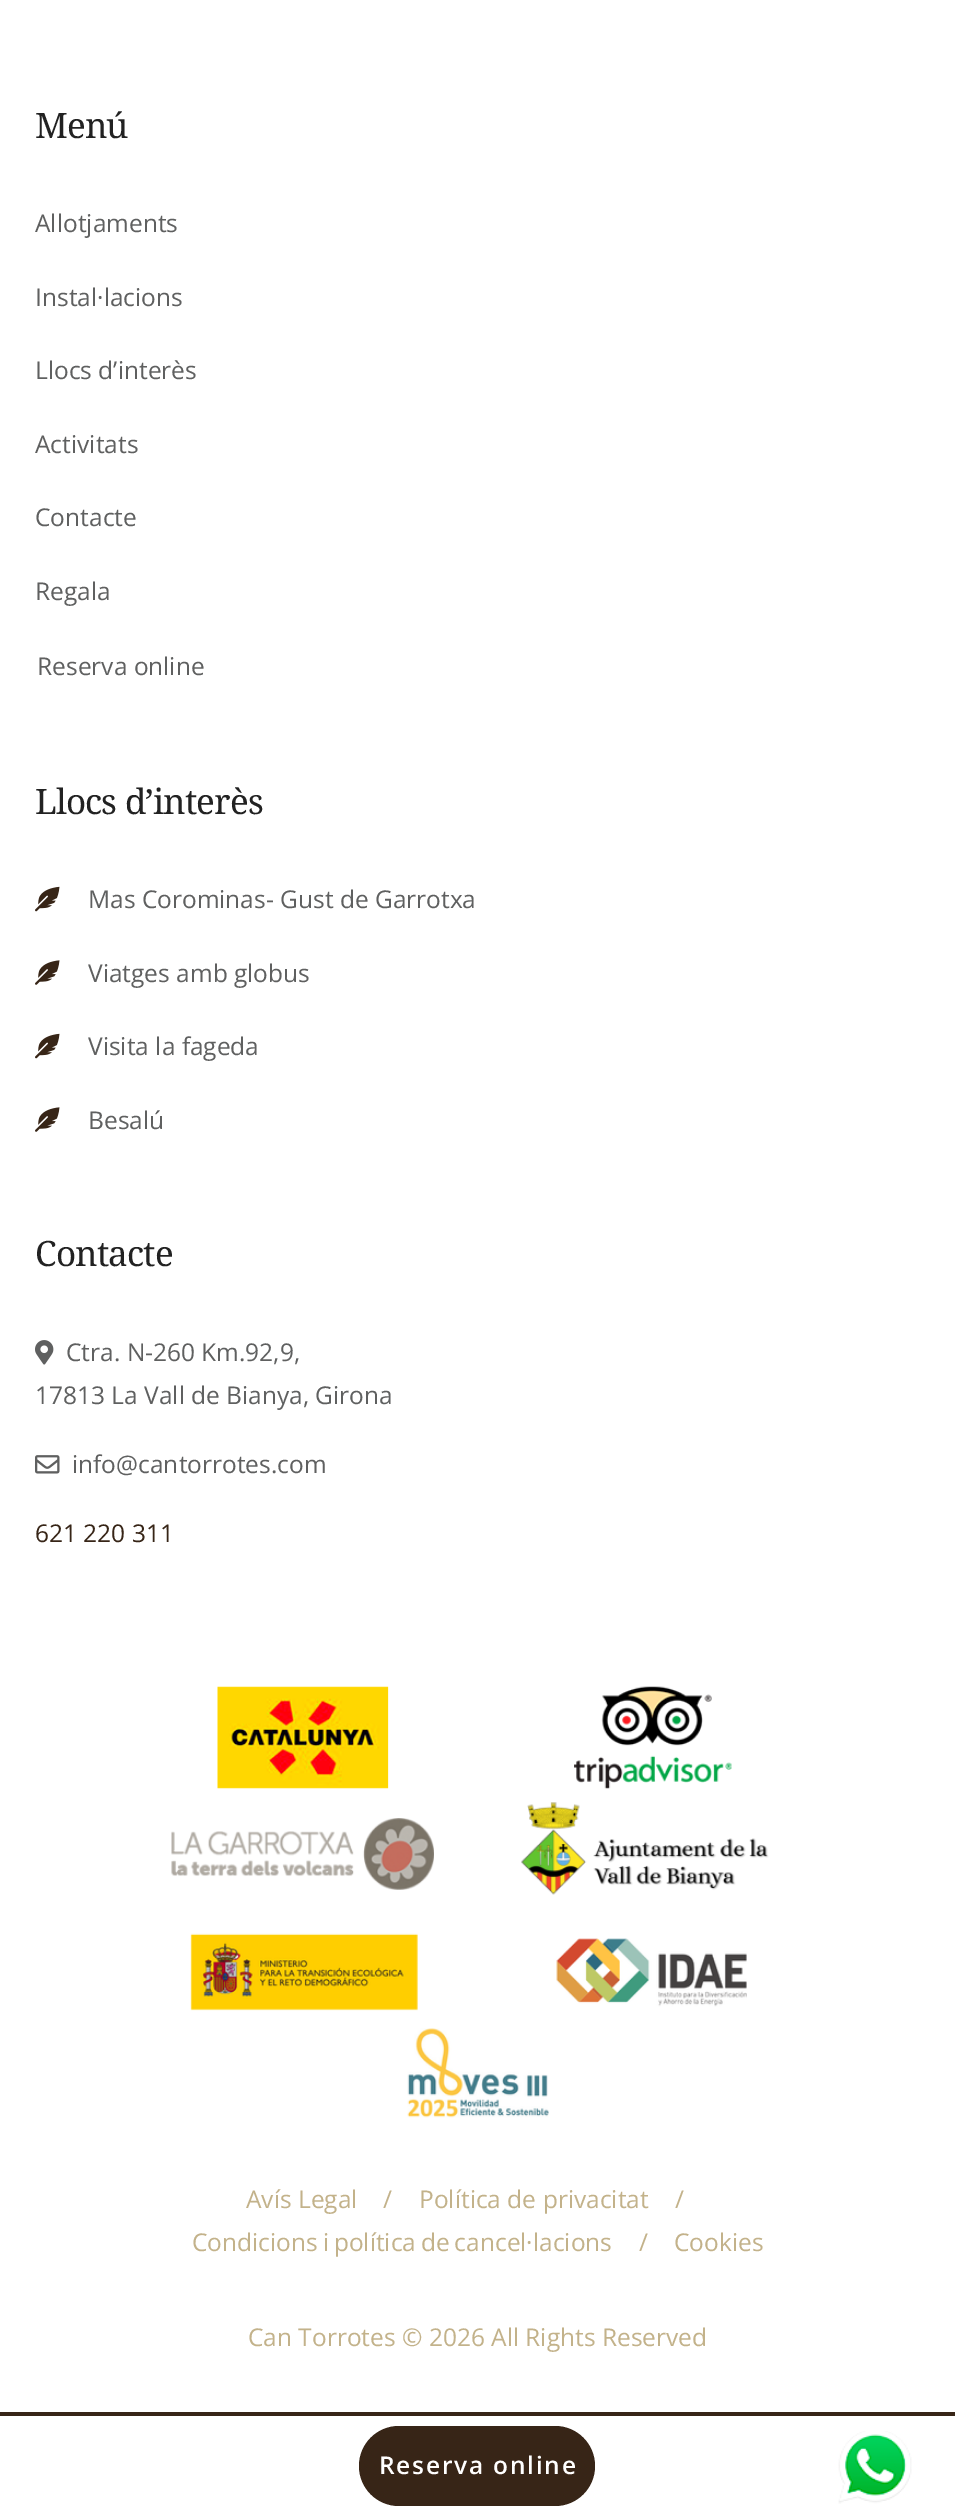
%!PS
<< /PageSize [955 2515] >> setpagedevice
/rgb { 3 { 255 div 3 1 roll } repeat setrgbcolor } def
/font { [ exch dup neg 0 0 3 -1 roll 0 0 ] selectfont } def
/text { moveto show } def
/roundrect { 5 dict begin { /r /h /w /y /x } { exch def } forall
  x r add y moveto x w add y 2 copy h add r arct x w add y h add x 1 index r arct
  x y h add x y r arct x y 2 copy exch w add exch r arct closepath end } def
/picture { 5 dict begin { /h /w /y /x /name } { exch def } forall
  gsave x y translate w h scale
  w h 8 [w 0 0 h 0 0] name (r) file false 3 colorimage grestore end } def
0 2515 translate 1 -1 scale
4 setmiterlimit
255 255 255 rgb
0 0 955 2515 rectfill
(img_01.rgb) 35 886 25 26 picture
(img_02.rgb) 35 960 25 25 picture
(img_01.rgb) 35 1033 25 26 picture
(img_02.rgb) 35 1107 25 25 picture
(img_03.rgb) 35 1340 19 25 picture
(img_04.rgb) 35 1455 25 19 picture
(img_05.rgb) 217 1686 172 103 picture
(img_06.rgb) 574 1686 158 103 picture
(img_07.rgb) 171 1818 263 72 picture
(img_08.rgb) 521 1802 248 93 picture
(img_09.rgb) 190 1933 228 78 picture
(img_10.rgb) 556 1938 191 69 picture
(img_11.rgb) 407 2028 142 90 picture
55 37 23 rgb
0 2412 955 4 rectfill
359 2426 236 80 40 roundrect fill
(img_12.rgb) 838 2431 74 73 picture
/NotoSerif-Regular 35 font
34 34 34 rgb
35 138 moveto -0.9 0 (Menú) ashow
/OpenSans-Regular 24.5 font
95 96 96 rgb
(Allotjaments) 35 232 text
(Instal·lacions) 35 306 text
(Llocs d’interès) 35 379 text
(Activitats) 35 453 text
(Contacte) 35 526 text
(Regala) 35 600 text
(Reserva online) 37 675 text
/NotoSerif-Regular 35 font
34 34 34 rgb
35 814 moveto -0.9 0 (Llocs d’interès) ashow
/OpenSans-Regular 24.5 font
95 96 96 rgb
(Mas Corominas- Gust de Garrotxa) 88 908 text
(Viatges amb globus) 88 982 text
(Visita la fageda) 88 1055 text
(Besalú) 88 1129 text
/NotoSerif-Regular 35 font
34 34 34 rgb
35 1266 moveto -0.9 0 (Contacte) ashow
/OpenSans-Regular 24.5 font
95 96 96 rgb
(Ctra. N-260 Km.92,9,) 66 1361 text
(17813 La Vall de Bianya, Girona) 35 1404 text
(info@cantorrotes.com) 72 1473 text
55 37 23 rgb
(621 220 311) 35 1542 text
195 178 138 rgb
(Avís Legal) 246 2208 text
(/) 383 2208 text
(Política de privacitat) 419 2208 text
(/) 675 2208 text
192 2251 moveto -1.5 0 32 (Condicions i política de cancel·lacions) widthshow
(/) 639 2251 text
(Cookies) 674 2251 text
(Can Torrotes © 2026 All Rights Reserved) 248 2346 text
/OpenSans-SemiBold 24.5 font
255 255 255 rgb
379 2474 moveto 1.75 0 (Reserva online) ashow
showpage
